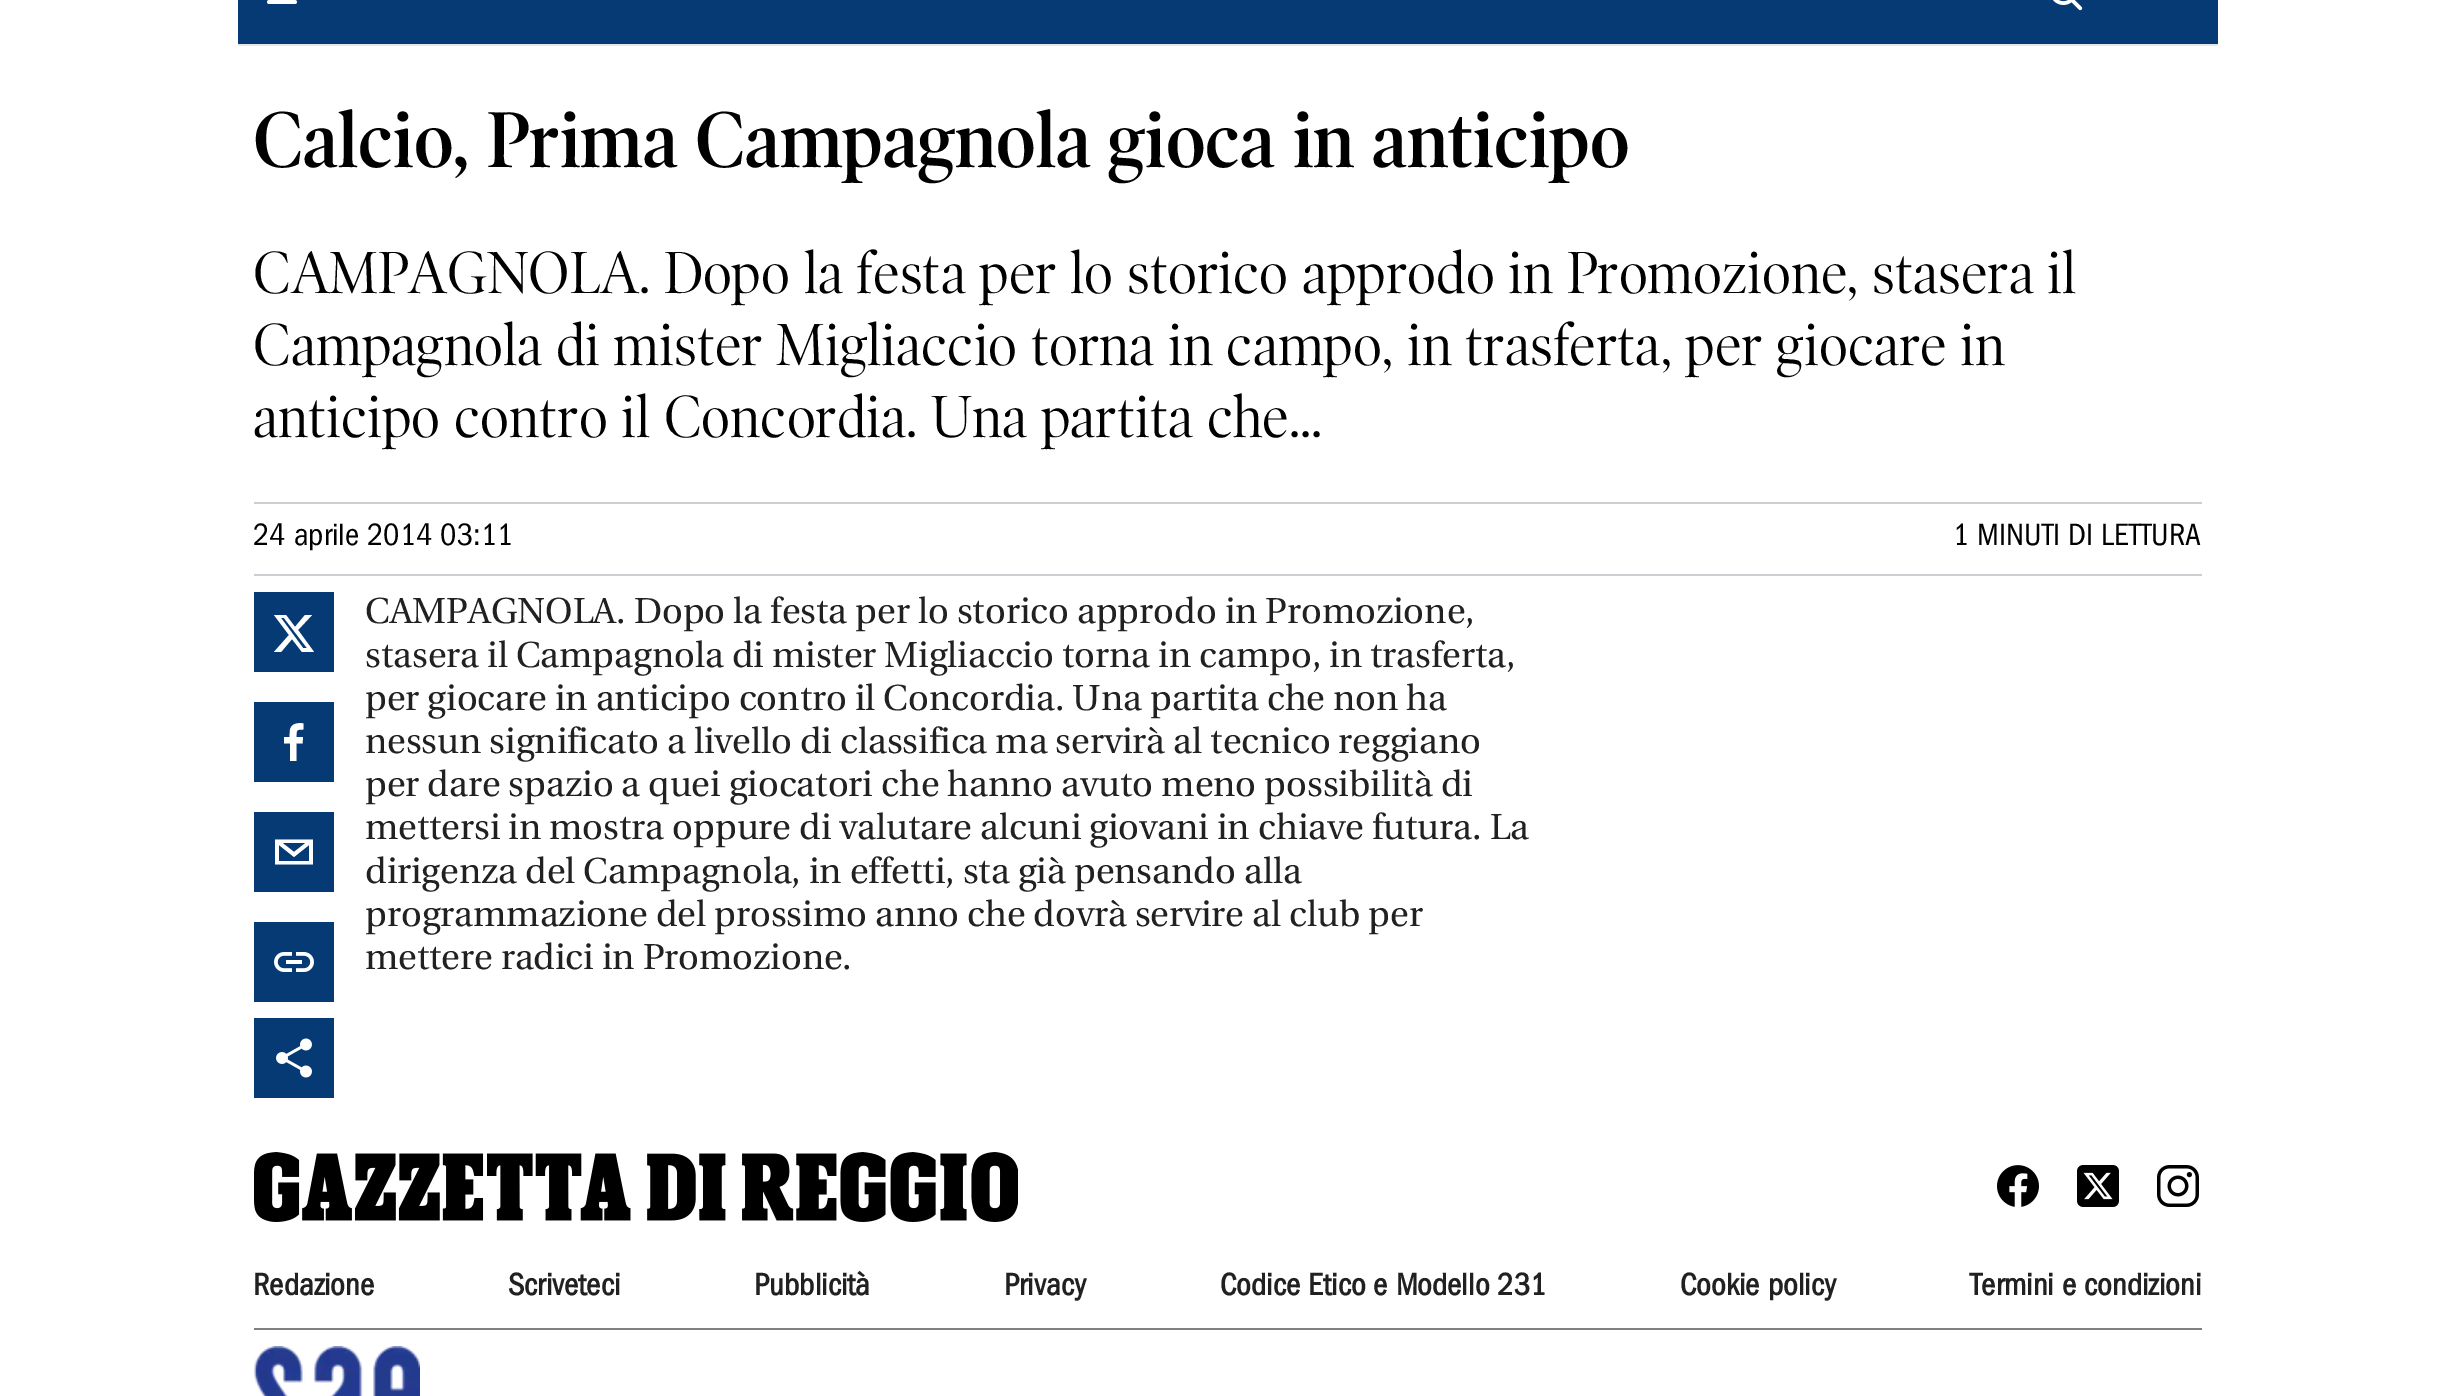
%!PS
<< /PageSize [2454 1396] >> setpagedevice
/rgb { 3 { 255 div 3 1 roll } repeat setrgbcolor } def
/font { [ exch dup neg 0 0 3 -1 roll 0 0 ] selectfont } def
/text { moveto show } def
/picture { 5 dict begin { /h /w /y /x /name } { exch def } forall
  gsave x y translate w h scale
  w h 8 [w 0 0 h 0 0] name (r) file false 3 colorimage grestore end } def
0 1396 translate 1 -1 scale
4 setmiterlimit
255 255 255 rgb
0 0 2454 1396 rectfill
6 58 116 rgb
238 0 1980 44 rectfill
230 230 230 rgb
238 44 1980 2 rectfill
255 255 255 rgb
3.8 setlinewidth
1 setlinecap
269 -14 moveto 26 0 rlineto 269 -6 moveto 26 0 rlineto 269 2 moveto 26 0 rlineto stroke
(img_01.rgb) 2053 0 30 11 picture
203 207 211 rgb
254 502 1948 2 rectfill
254 574 1948 2 rectfill
6 58 116 rgb
254 592 80 80 rectfill
255 255 255 rgb
305 615 moveto 7 0 rlineto -14 15 rlineto 16 22 rlineto -12 0 rlineto -10 -13 rlineto -11 13 rlineto -7 0 rlineto 15 -17 rlineto -15 -20 rlineto 12 0 rlineto 9 12 rlineto closepath 303 648 moveto 4 0 rlineto -23 -30 rlineto -3 0 rlineto closepath fill
6 58 116 rgb
254 702 80 80 rectfill
255 255 255 rgb
296.5 761 moveto 0 -17.5 rlineto 6 0 rlineto 0.5 -6.5 rlineto -6.5 0 rlineto 0 -7 -0.5 -7.5 7 -7.5 rcurveto 0 -6 rlineto -5.5 -1 -12.5 0 -13.5 6.5 rcurveto -0.5 7 rlineto -5.5 0 rlineto 0 6.5 rlineto 6 0 rlineto 0 17.5 rlineto closepath fill
6 58 116 rgb
254 812 80 80 rectfill
255 255 255 rgb
275 839.5 moveto 0 25 rlineto 38 0 rlineto 0 -25 rlineto closepath 305.5 843 moveto -11.5 9 rlineto -11.5 -9 rlineto closepath 279 861 moveto 0 -16 rlineto 15 12 rlineto 15 -12 rlineto 0 16 rlineto closepath fill
6 58 116 rgb
254 922 80 80 rectfill
(img_02.rgb) 274 952 40 20 picture
254 1018 80 80 rectfill
(img_03.rgb) 276 1038 36 40 picture
(img_04.rgb) 254 1152 764 70 picture
(img_05.rgb) 1997 1165 42 42 picture
(img_06.rgb) 2077 1165 42 42 picture
(img_07.rgb) 2157 1165 42 42 picture
128 128 128 rgb
254 1328 1948 2 rectfill
(img_08.rgb) 254 1346 166 50 picture
/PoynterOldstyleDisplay-SemiBold 80 font
0 0 0 rgb
(Calcio, Prima Campagnola gioca in anticipo) 253 167 text
/PoynterOldstyleDisplay-Regular 60 font
(CAMPAGNOLA. Dopo la festa per lo storico approdo in Promozione, stasera il) 253 293 text
(Campagnola di mister Migliaccio torna in campo, in trasferta, per giocare in) 253 365 text
(anticipo contro il Concordia. Una partita che...) 253 437 text
/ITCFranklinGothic-Regular 32 font
(24 aprile 2014 03:11) 253 545 text
(1 MINUTI DI LETTURA) 1953 545 text
/Utopia-Regular 36 font
33 33 33 rgb
(CAMPAGNOLA. Dopo la festa per lo storico approdo in Promozione,) 365 623 text
(stasera il Campagnola di mister Migliaccio torna in campo, in trasferta,) 365 667 text
(per giocare in anticipo contro il Concordia. Una partita che non ha) 365 710 text
(nessun significato a livello di classifica ma servirà al tecnico reggiano) 365 753 text
(per dare spazio a quei giocatori che hanno avuto meno possibilità di) 365 796 text
(mettersi in mostra oppure di valutare alcuni giovani in chiave futura. La) 365 839 text
(dirigenza del Campagnola, in effetti, sta già pensando alla) 365 883 text
(programmazione del prossimo anno che dovrà servire al club per) 365 926 text
(mettere radici in Promozione.) 365 969 text
/ITCFranklinGothic-Bold 32 font
(Redazione) 253 1295 text
(Scriveteci) 508 1295 text
(Pubblicità) 754 1295 text
(Privacy) 1004 1295 text
(Codice Etico e Modello 231) 1220 1295 text
(Cookie policy) 1680 1295 text
(Termini e condizioni) 1970 1295 text
showpage
